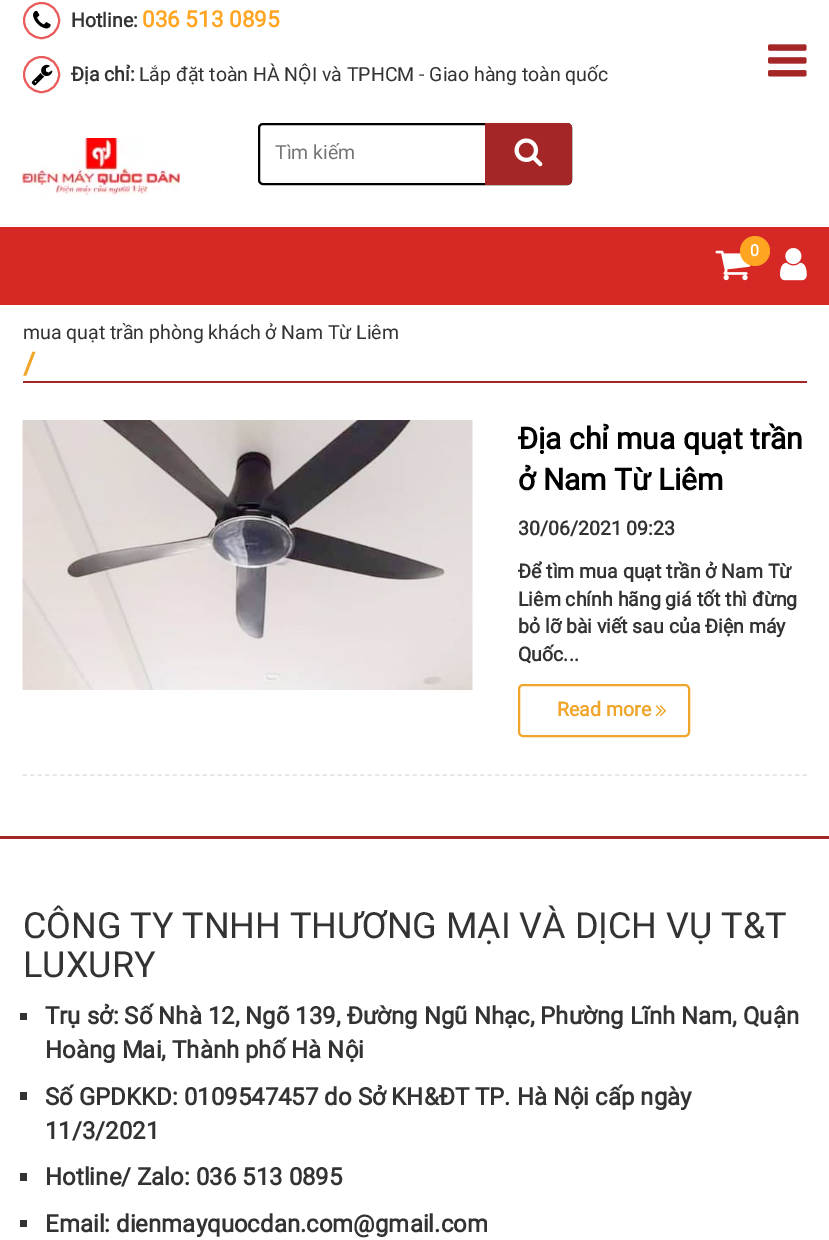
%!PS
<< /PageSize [829 1240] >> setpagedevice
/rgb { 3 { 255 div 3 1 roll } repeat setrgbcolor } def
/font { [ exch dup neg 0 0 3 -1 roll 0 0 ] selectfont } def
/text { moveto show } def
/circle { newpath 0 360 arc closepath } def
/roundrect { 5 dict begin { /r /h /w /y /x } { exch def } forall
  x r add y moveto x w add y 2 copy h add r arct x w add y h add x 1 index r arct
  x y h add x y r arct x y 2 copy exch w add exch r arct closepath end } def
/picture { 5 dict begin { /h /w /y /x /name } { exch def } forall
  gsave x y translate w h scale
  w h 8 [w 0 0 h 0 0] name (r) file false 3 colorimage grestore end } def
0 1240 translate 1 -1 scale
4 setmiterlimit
255 255 255 rgb
0 0 829 1240 rectfill
234 91 91 rgb
2 setlinewidth
41.5 20.5 17.5 circle stroke
(img_01.rgb) 33 10 18 19 picture
41.5 74.5 17.5 circle stroke
(img_02.rgb) 31 64 22 22 picture
(img_03.rgb) 22 138 158 59 picture
0 0 0 rgb
259 124 312 60 4 roundrect stroke
165 38 38 rgb
485 123 moveto 82 0 rlineto 3 0 5 2 5 5 rcurveto 0 52 rlineto 0 3 -2 5 -5 5 rcurveto -82 0 rlineto closepath fill
(img_04.rgb) 514 138 29 29 picture
(img_05.rgb) 768 44 39 33 picture
214 40 37 rgb
0 227 829 78 rectfill
(img_06.rgb) 715 250 36 31 picture
255 165 33 rgb
755 251 15 circle fill
(img_07.rgb) 780 248 27 33 picture
165 38 38 rgb
23 381 784 2 rectfill
230 230 230 rgb
1.5 setlinewidth
[4.5 3] 0 setdash
22.5 775 moveto 784.5 0 rlineto stroke
(img_08.rgb) 22 420 451 270 picture
240 165 43 rgb
2 setlinewidth
[] 0 setdash
519 685 170 51 4 roundrect stroke
(img_09.rgb) 655 705 12 12 picture
165 38 38 rgb
0 836 829 3 rectfill
51 51 51 rgb
20 1013 7 7 rectfill
20 1092 7 8 rectfill
20 1173 7 8 rectfill
20 1220 7 7 rectfill
/Roboto-Bold 19.5 font
(Hotline:) 71 27 text
/Roboto-Bold 22.5 font
255 165 33 rgb
(036 513 0895) 142 27 text
/Roboto-Bold 19.5 font
51 51 51 rgb
(Địa chỉ:) 71 81 text
/Roboto-Regular 19.5 font
(Lắp đặt toàn HÀ NỘI và TPHCM - Giao hàng toàn quốc) 139 81 text
117 117 117 rgb
(Tìm kiếm) 275 159 text
/Roboto-Bold 16 font
255 255 255 rgb
(0) 750 256 text
/Roboto-Regular 19.5 font
51 51 51 rgb
(mua quạt trần phòng khách ở Nam Từ Liêm) 23 339 text
/Roboto-Bold 30 font
240 165 43 rgb
(/) 23 374 text
0 0 0 rgb
(Địa chỉ mua quạt trần) 518 449 text
(ở Nam Từ Liêm) 518 490 text
/Roboto-Bold 19.5 font
51 51 51 rgb
(30/06/2021 09:23) 518 535 text
(Để tìm mua quạt trần ở Nam Từ) 518 578 text
(Liêm chính hãng giá tốt thì đừng) 518 606 text
(bỏ lỡ bài viết sau của Điện máy) 518 633 text
(Quốc...) 518 661 text
240 165 43 rgb
(Read more) 557 716 text
/Roboto-Regular 36 font
51 51 51 rgb
(CÔNG TY TNHH THƯƠNG MẠI VÀ DỊCH VỤ T&T) 23 938 text
(LUXURY) 23 977 text
/Roboto-Bold 24 font
(Trụ sở: Số Nhà 12, Ngõ 139, Đường Ngũ Nhạc, Phường Lĩnh Nam, Quận) 45 1024 text
(Hoàng Mai, Thành phố Hà Nội) 45 1058 text
(Số GPDKKD: 0109547457 do Sở KH&ĐT TP. Hà Nội cấp ngày) 45 1105 text
(11/3/2021) 45 1139 text
(Hotline/ Zalo: 036 513 0895) 45 1185 text
(Email: dienmayquocdan.com@gmail.com) 45 1232 text
showpage
